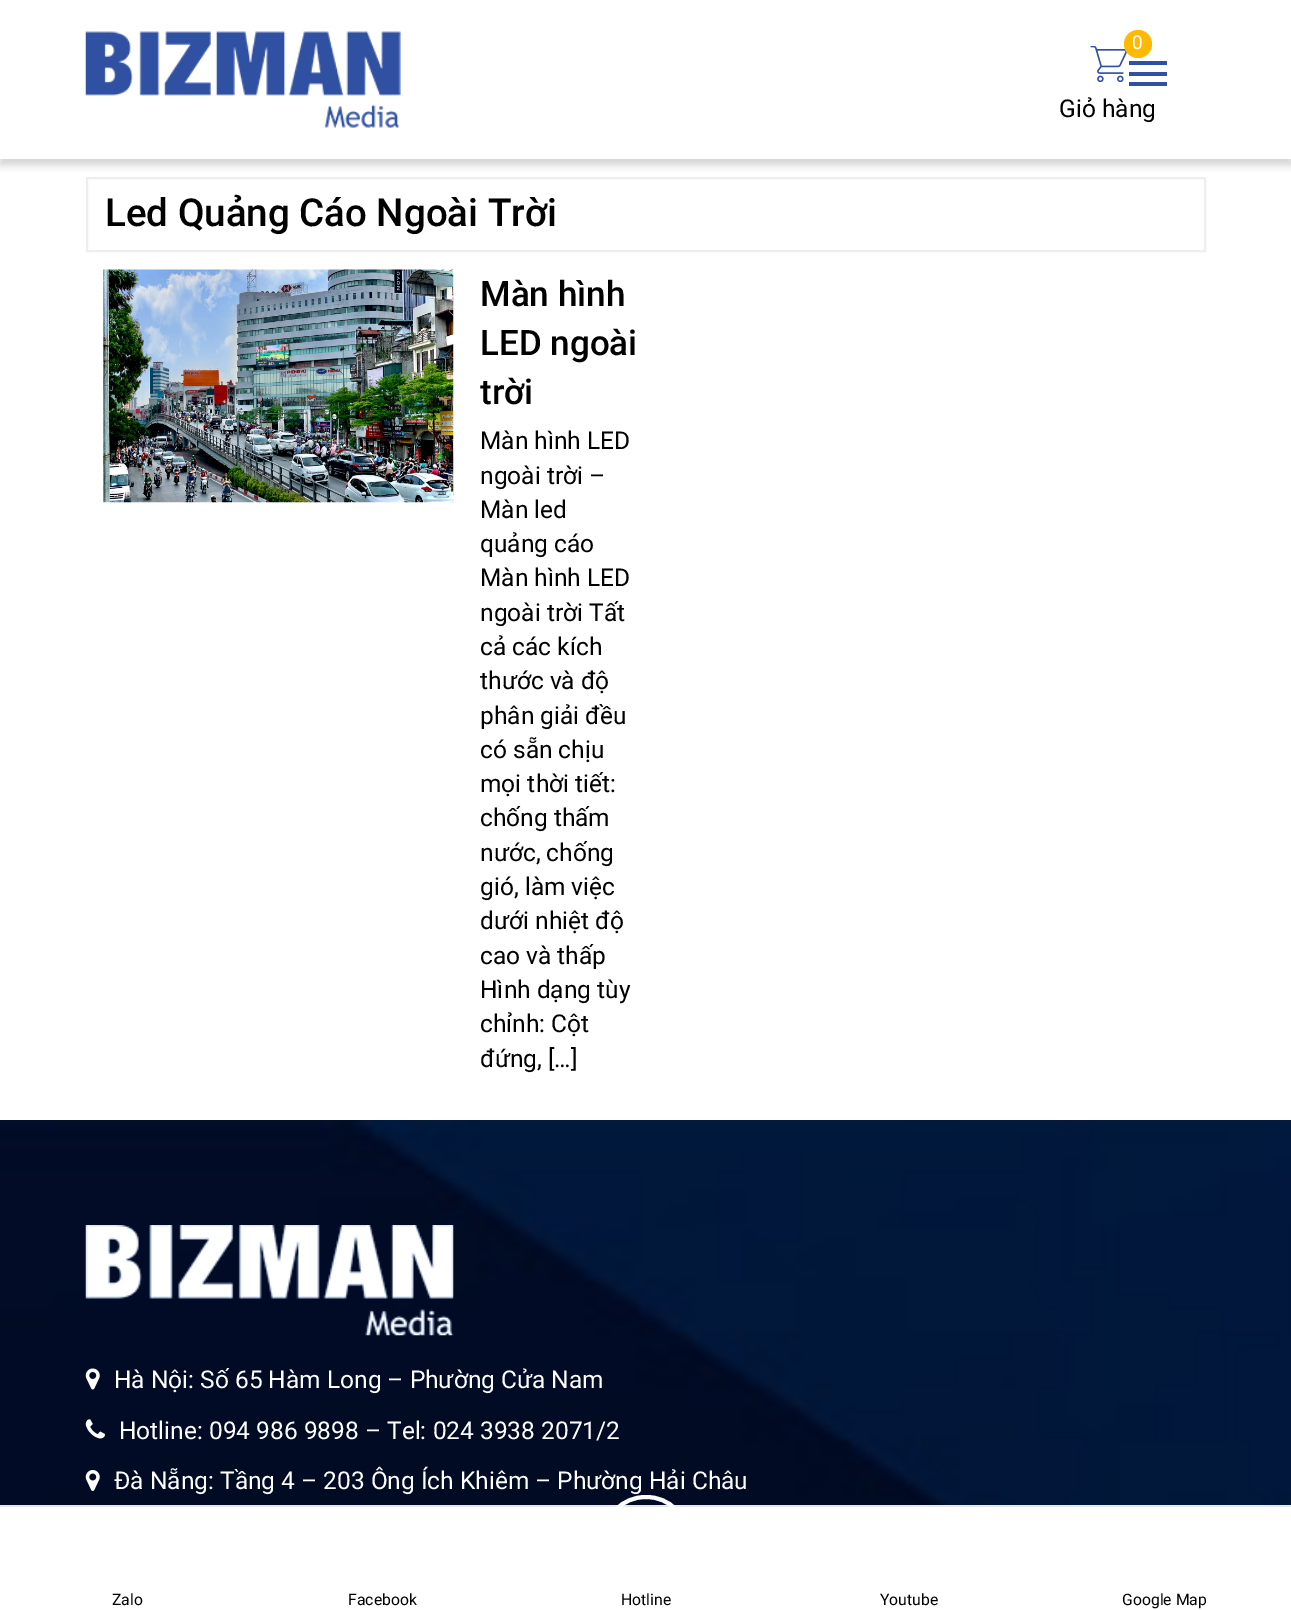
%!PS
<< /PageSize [1291 1610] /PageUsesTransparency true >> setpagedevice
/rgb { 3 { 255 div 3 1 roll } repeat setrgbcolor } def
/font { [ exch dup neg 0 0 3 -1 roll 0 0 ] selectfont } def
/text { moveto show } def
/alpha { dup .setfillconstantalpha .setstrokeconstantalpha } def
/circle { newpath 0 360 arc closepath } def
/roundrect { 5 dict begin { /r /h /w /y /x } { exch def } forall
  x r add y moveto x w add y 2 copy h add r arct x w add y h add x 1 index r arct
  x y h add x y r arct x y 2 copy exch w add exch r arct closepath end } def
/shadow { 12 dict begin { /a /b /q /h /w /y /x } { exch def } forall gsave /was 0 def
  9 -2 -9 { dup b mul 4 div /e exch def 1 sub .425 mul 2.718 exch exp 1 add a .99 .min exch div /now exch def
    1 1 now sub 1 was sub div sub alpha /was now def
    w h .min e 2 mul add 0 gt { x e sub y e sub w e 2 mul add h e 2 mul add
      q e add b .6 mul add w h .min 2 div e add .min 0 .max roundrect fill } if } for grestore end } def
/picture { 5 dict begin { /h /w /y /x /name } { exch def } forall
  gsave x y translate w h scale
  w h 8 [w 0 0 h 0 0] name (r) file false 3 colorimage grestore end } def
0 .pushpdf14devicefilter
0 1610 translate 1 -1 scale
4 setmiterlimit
255 255 255 rgb
0 0 1291 1610 rectfill
238 238 238 rgb
2 setlinewidth
87 178 1118 73 rectstroke
gsave
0 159 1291 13 rectclip
136 136 136 rgb
0 5 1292 160 0 4.5 0.38 shadow
grestore
(img_01.rgb) 85 31 316 97 picture
(img_02.rgb) 1090 46 37 36 picture
255 185 1 rgb
1138 44 14 circle fill
48 80 162 rgb
1129 61 38 4 rectfill
1129 72 38 4 rectfill
1129 82 38 4 rectfill
(img_03.rgb) 103 269 351 234 picture
(img_04.rgb) 0 1120 1291 385 picture
(img_05.rgb) 85 1225 369 111 picture
(img_06.rgb) 85 1368 15 22 picture
(img_07.rgb) 85 1419 20 20 picture
(img_08.rgb) 85 1470 15 21 picture
0 0 0 rgb
0 1505 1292 105 0 5 0.09 shadow
255 255 255 rgb
0 1507 1291 103 rectfill
232 232 232 rgb
0 1505 1291 2 rectfill
255 255 255 rgb
4 setlinewidth
604 1497 84 83 41.5 roundrect stroke
/Roboto-Regular 19 font
(0) 1132 49 text
/Roboto-Regular 24.5 font
0 0 0 rgb
(Giỏ hàng) 1059 117 text
/Roboto-Medium 38.5 font
(Led Quảng Cáo Ngoài Trời) 105 226 text
/Roboto-Medium 35 font
(Màn hình) 480 306 text
(LED ngoài) 480 355 text
(trời) 480 404 text
/Roboto-Regular 24.5 font
(Màn hình LED) 480 449 text
(ngoài trời –) 480 484 text
(Màn led) 480 518 text
(quảng cáo) 480 552 text
(Màn hình LED) 480 586 text
(ngoài trời Tất) 480 621 text
(cả các kích) 480 655 text
(thước và độ) 480 689 text
(phân giải đều) 480 724 text
(có sẵn chịu) 480 758 text
(mọi thời tiết:) 480 792 text
(chống thấm) 480 826 text
(nước, chống) 480 861 text
(gió, làm việc) 480 895 text
(dưới nhiệt độ) 480 929 text
(cao và thấp) 480 964 text
(Hình dạng tùy) 480 998 text
(chỉnh: Cột) 480 1032 text
(đứng, […]) 480 1067 text
255 255 255 rgb
(Hà Nội: Số 65 Hàm Long – Phường Cửa Nam) 114 1388 text
(Hotline: 094 986 9898 – Tel: 024 3938 2071/2) 119 1439 text
(Đà Nẵng: Tầng 4 – 203 Ông Ích Khiêm – Phường Hải Châu) 114 1489 text
/Roboto-Regular 15.75 font
0 0 0 rgb
(Zalo) 112 1605 text
(Facebook) 348 1605 text
(Hotline) 621 1605 text
(Youtube) 880 1605 text
(Google Map) 1122 1605 text
.poppdf14devicefilter showpage
